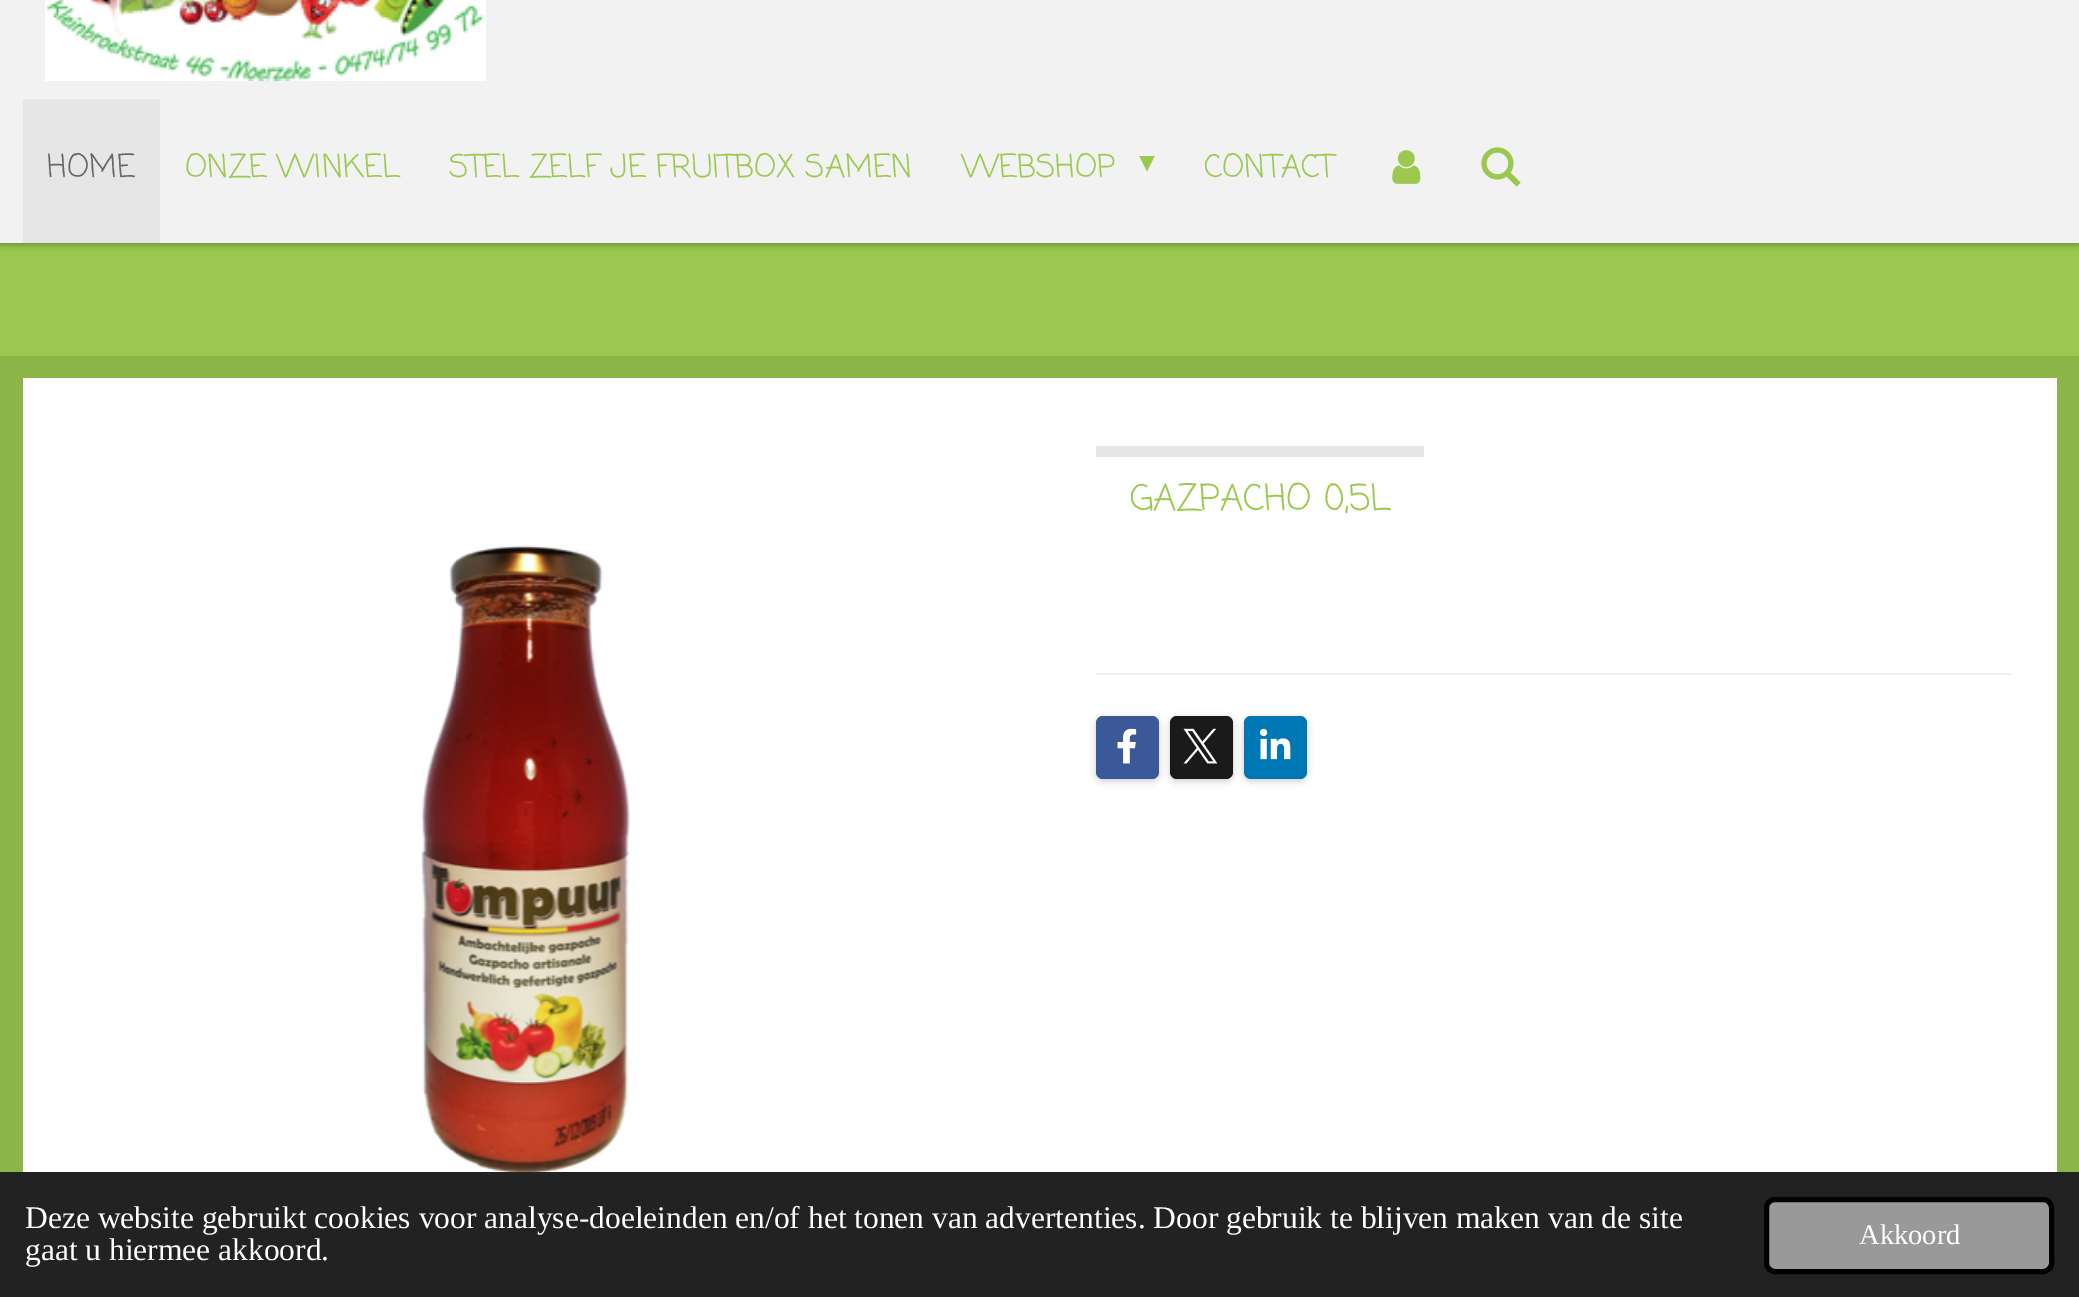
%!PS
<< /PageSize [2079 1297] /PageUsesTransparency true >> setpagedevice
/rgb { 3 { 255 div 3 1 roll } repeat setrgbcolor } def
/font { [ exch dup neg 0 0 3 -1 roll 0 0 ] selectfont } def
/text { moveto show } def
/alpha { dup .setfillconstantalpha .setstrokeconstantalpha } def
/roundrect { 5 dict begin { /r /h /w /y /x } { exch def } forall
  x r add y moveto x w add y 2 copy h add r arct x w add y h add x 1 index r arct
  x y h add x y r arct x y 2 copy exch w add exch r arct closepath end } def
/shadow { 12 dict begin { /a /b /q /h /w /y /x } { exch def } forall gsave /was 0 def
  9 -2 -9 { dup b mul 4 div /e exch def 1 sub .425 mul 2.718 exch exp 1 add a .99 .min exch div /now exch def
    1 1 now sub 1 was sub div sub alpha /was now def
    w h .min e 2 mul add 0 gt { x e sub y e sub w e 2 mul add h e 2 mul add
      q e add b .6 mul add w h .min 2 div e add .min 0 .max roundrect fill } if } for grestore end } def
/picture { 5 dict begin { /h /w /y /x /name } { exch def } forall
  gsave x y translate w h scale
  w h 8 [w 0 0 h 0 0] name (r) file false 3 colorimage grestore end } def
0 .pushpdf14devicefilter
0 1297 translate 1 -1 scale
4 setmiterlimit
155 201 79 rgb
0 0 2079 1297 rectfill
0 0 0 rgb
0 -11 2079 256 0 3.5 0.3 shadow
242 242 242 rgb
0 0 2079 243 rectfill
(img_01.rgb) 45 0 441 81 picture
230 230 230 rgb
23 99 137 144 rectfill
(img_02.rgb) 1392 150 29 34 picture
(img_03.rgb) 1481 147 40 40 picture
140 181 71 rgb
0 356 2079 816 rectfill
255 255 255 rgb
23 378 2034 794 rectfill
230 230 230 rgb
1096 446 328 11 rectfill
(img_04.rgb) 421 545 210 627 picture
242 242 242 rgb
1096 673 916 2 rectfill
0 0 0 rgb
1096 718 63 63 7 3.5 0.2 shadow
59 89 152 rgb
1096 716 63 63 7 roundrect fill
(img_05.rgb) 1117 728 20 36 picture
0 0 0 rgb
1170 718 63 63 7 3.5 0.2 shadow
26 26 26 rgb
1170 716 63 63 7 roundrect fill
(img_06.rgb) 1183 728 35 36 picture
0 0 0 rgb
1244 718 63 63 7 3.5 0.2 shadow
0 119 181 rgb
1244 716 63 63 7 roundrect fill
(img_07.rgb) 1260 728 31 32 picture
34 34 34 rgb
0 1172 2079 125 rectfill
153 153 153 rgb
1766.5 1199.5 285 72 8.5 roundrect gsave fill grestore
0 0 0 rgb
5 setlinewidth
stroke
/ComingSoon-Regular 31.5 font
103 103 103 rgb
(HOME) 47 177 text
155 201 79 rgb
(ONZE WINKEL) 185 177 text
(STEL ZELF JE FRUITBOX SAMEN) 449 177 text
(WEBSHOP) 962 177 text
/DejaVuSans-Regular 31.5 font
(▾) 1139 172 text
/ComingSoon-Regular 31.5 font
(CONTACT) 1204 177 text
/ComingSoon-Regular 36 font
(GAZPACHO 0,5L) 1130 510 text
/LiberationSerif-Regular 31.5 font
255 255 255 rgb
(Deze website gebruikt cookies voor analyse-doeleinden en/of het tonen van advertenties. Door gebruik te blijven maken van de site) 25 1228 text
(gaat u hiermee akkoord.) 25 1260 text
/LiberationSerif-Regular 28.5 font
(Akkoord) 1859 1244 text
.poppdf14devicefilter showpage
